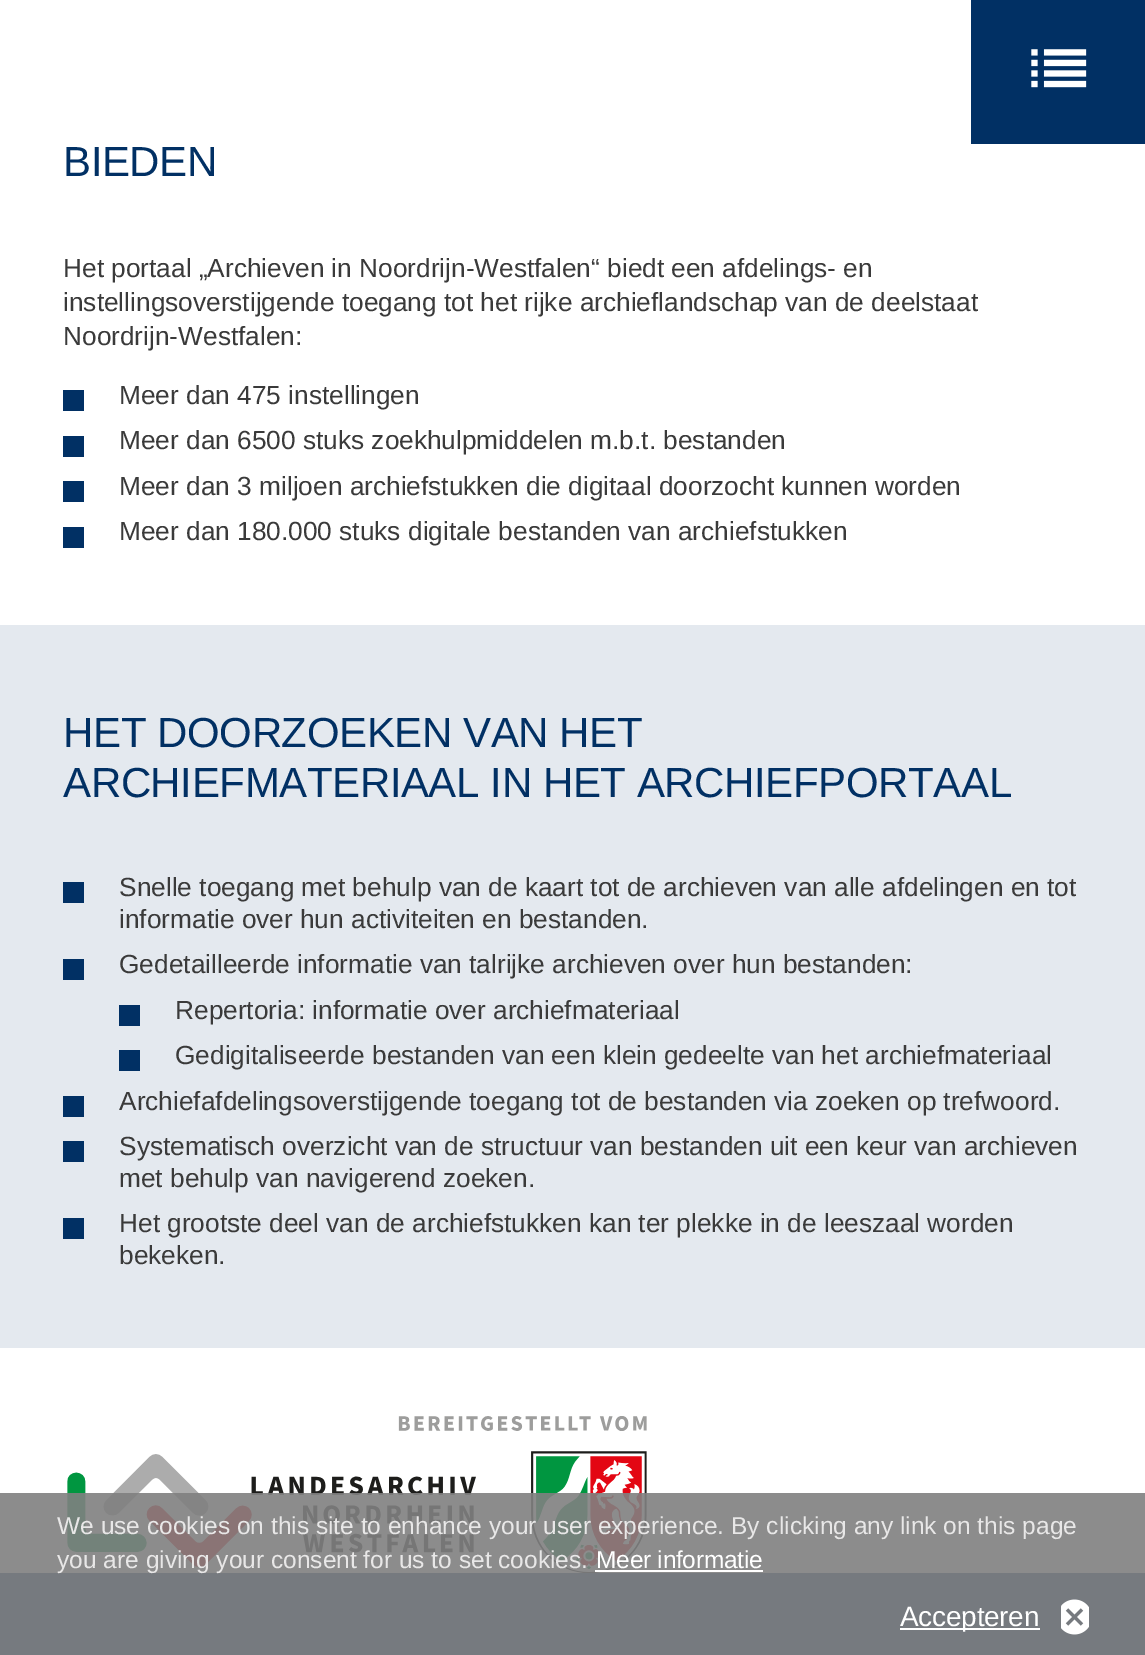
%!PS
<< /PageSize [1145 1655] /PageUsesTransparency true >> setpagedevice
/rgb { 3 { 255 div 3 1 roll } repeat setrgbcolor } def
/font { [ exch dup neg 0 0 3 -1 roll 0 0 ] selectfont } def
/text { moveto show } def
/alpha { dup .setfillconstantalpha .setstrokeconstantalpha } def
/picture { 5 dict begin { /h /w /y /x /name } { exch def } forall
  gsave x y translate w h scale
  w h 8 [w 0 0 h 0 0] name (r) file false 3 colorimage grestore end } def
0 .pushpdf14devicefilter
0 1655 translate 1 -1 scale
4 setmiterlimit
255 255 255 rgb
0 0 1145 1655 rectfill
1 48 100 rgb
971 0 174 144 rectfill
(img_01.rgb) 1031 49 56 39 picture
63 390 21 21 rectfill
63 436 21 21 rectfill
63 481 21 21 rectfill
63 527 21 21 rectfill
228 233 239 rgb
0 625 1145 723 rectfill
1 48 100 rgb
63 882 21 21 rectfill
63 959 21 21 rectfill
119 1005 21 21 rectfill
119 1050 21 21 rectfill
63 1096 21 21 rectfill
63 1141 21 21 rectfill
63 1218 21 21 rectfill
(img_02.rgb) 67 1416 580 158 picture
0.89 alpha
0 1573 1145 82 rectfill
0.9 alpha
128 128 128 rgb
0 1493 1145 162 rectfill
1 alpha
255 255 255 rgb
595 1570 168 2 rectfill
900 1628 140 2 rectfill
(img_03.rgb) 1061 1599 28 36 picture
/LiberationSans-Regular 42 font
1 48 100 rgb
63 176 moveto -0.4 0 (BIEDEN) ashow
/LiberationSans-Regular 26.25 font
58 58 58 rgb
(Het portaal „Archieven in Noordrijn-Westfalen“ biedt een afdelings- en) 63 277 text
(instellingsoverstijgende toegang tot het rijke archieflandschap van de deelstaat) 63 311 text
(Noordrijn-Westfalen:) 63 345 text
(Meer dan 475 instellingen) 119 404 text
(Meer dan 6500 stuks zoekhulpmiddelen m.b.t. bestanden) 119 449 text
(Meer dan 3 miljoen archiefstukken die digitaal doorzocht kunnen worden) 119 495 text
(Meer dan 180.000 stuks digitale bestanden van archiefstukken) 119 540 text
/LiberationSans-Regular 42 font
1 48 100 rgb
63 747 moveto -0.4 0 (HET DOORZOEKEN VAN HET) ashow
63 797 moveto -0.4 0 (ARCHIEFMATERIAAL IN HET ARCHIEFPORTAAL) ashow
/LiberationSans-Regular 26.25 font
58 58 58 rgb
(Snelle toegang met behulp van de kaart tot de archieven van alle afdelingen en tot) 119 896 text
(informatie over hun activiteiten en bestanden.) 119 928 text
(Gedetailleerde informatie van talrijke archieven over hun bestanden:) 119 973 text
(Repertoria: informatie over archiefmateriaal) 175 1019 text
(Gedigitaliseerde bestanden van een klein gedeelte van het archiefmateriaal) 175 1064 text
(Archiefafdelingsoverstijgende toegang tot de bestanden via zoeken op trefwoord.) 119 1110 text
(Systematisch overzicht van de structuur van bestanden uit een keur van archieven) 119 1155 text
(met behulp van navigerend zoeken.) 119 1187 text
(Het grootste deel van de archiefstukken kan ter plekke in de leeszaal worden) 119 1232 text
(bekeken.) 119 1264 text
/LiberationSans-Regular 24.5 font
232 231 231 rgb
(We use cookies on this site to enhance your user experience. By clicking any link on this page) 57 1534 text
(you are giving your consent for us to set cookies.) 57 1568 text
255 255 255 rgb
596 1568 moveto -0.25 0 (Meer informatie) ashow
/LiberationSans-Regular 28 font
900 1626 moveto -0.25 0 (Accepteren) ashow
.poppdf14devicefilter showpage
